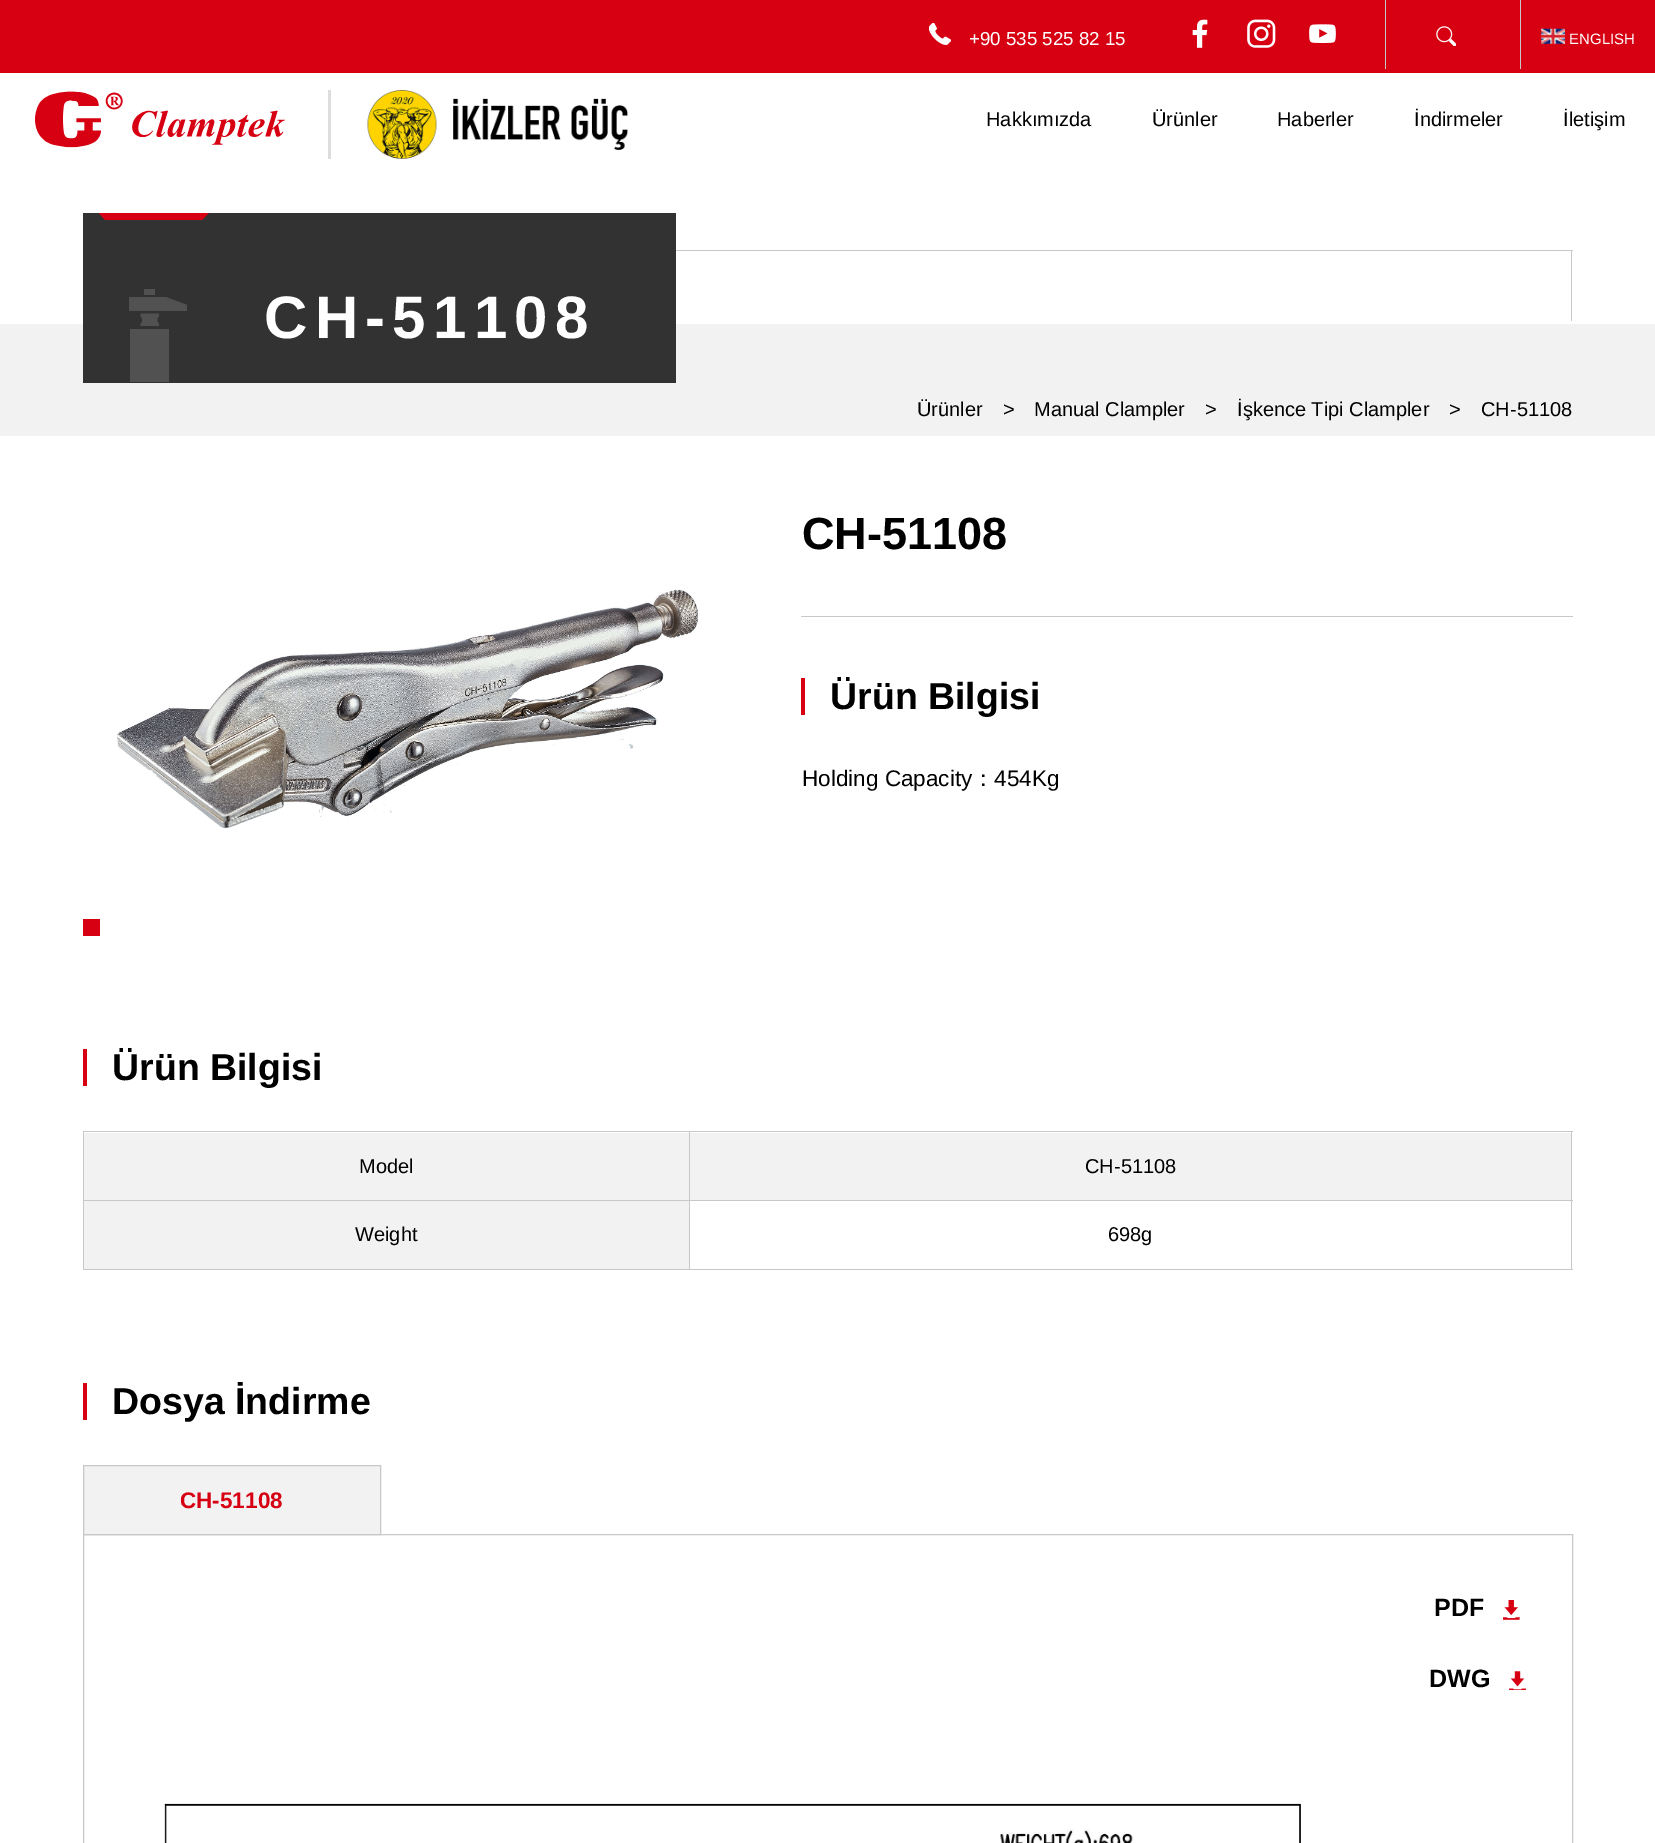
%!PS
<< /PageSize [1655 1843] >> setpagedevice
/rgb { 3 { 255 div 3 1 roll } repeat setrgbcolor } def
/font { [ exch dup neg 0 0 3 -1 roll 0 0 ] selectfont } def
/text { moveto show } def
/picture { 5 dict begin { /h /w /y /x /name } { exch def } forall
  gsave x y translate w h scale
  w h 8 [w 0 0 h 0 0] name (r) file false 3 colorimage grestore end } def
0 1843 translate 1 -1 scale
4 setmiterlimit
255 255 255 rgb
0 0 1655 1843 rectfill
214 0 18 rgb
0 0 1655 73 rectfill
(img_01.rgb) 929 23 22 22 picture
(img_02.rgb) 1192 19 16 29 picture
(img_03.rgb) 1247 19 29 29 picture
(img_04.rgb) 1309 24 27 20 picture
200 200 200 rgb
1385 0 1 69 rectfill
(img_05.rgb) 1436 26 20 20 picture
1520 0 1 69 rectfill
(img_06.rgb) 1541 28 24 16 picture
(img_07.rgb) 35 91 250 57 picture
221 221 221 rgb
328 90 3 69 rectfill
(img_08.rgb) 367 90 261 69 picture
242 242 242 rgb
0 324 1655 112 rectfill
50 50 50 rgb
83 213 593 170 rectfill
gsave
98 213 112 7 rectclip
214 0 18 rgb
202 212 moveto -104 0 rlineto 7 8 rlineto 97 0 rlineto 8 -8 rlineto closepath fill
grestore
81 81 81 rgb
144 289 11 6 rectfill
187 305 moveto -21 -8 rlineto -37 0 rlineto 0 14 rlineto 58 0 rlineto closepath fill
130 329 39 53 rectfill
159 323.5 moveto -1.5 -1.5 rlineto 0 -4 rlineto 1.5 -1.5 rlineto 0 -3 rlineto -18.5 0 rlineto 0 3 rlineto 1.5 1.5 rlineto 0 4 rlineto -1.5 1.5 rlineto 0 2.5 rlineto 18.5 0 rlineto closepath fill
200 200 200 rgb
676 250 897 1 rectfill
1571 250 1 71 rectfill
(img_09.rgb) 117 589 581 240 picture
214 0 18 rgb
83 919 17 17 rectfill
200 200 200 rgb
801 616 772 1 rectfill
214 0 18 rgb
801 678 4 37 rectfill
83 1049 4 37 rectfill
200 200 200 rgb
83 1131 1490 1 rectfill
1571 1131 1 139 rectfill
83 1269 1490 1 rectfill
83 1131 1 139 rectfill
242 242 242 rgb
84 1133 605 67 rectfill
690 1133 881 67 rectfill
200 200 200 rgb
689 1200 884 1 rectfill
689 1200 1 70 rectfill
83 1200 607 1 rectfill
689 1131 1 70 rectfill
242 242 242 rgb
84 1201 605 68 rectfill
214 0 18 rgb
83 1383 4 37 rectfill
200 200 200 rgb
83.5 1534.5 1489 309 rectstroke
242 242 242 rgb
83.5 1465.5 moveto 297 0 rlineto 0 69 rlineto -297 0 rlineto closepath gsave fill grestore
200 200 200 rgb
stroke
(img_10.rgb) 1503 1600 17 20 picture
(img_11.rgb) 1509 1671 17 19 picture
(img_12.rgb) 164 1803 1137 40 picture
/LiberationSans-Regular 18.75 font
255 255 255 rgb
(+90 535 525 82 15) 969 45 text
/LiberationSans-Regular 15 font
(ENGLISH) 1569 44 text
/LiberationSans-Regular 20 font
0 0 0 rgb
(Hakkımızda) 986 126 text
(Ürünler) 1152 126 text
(Haberler) 1277 126 text
(İndirmeler) 1414 126 text
(İletişim) 1563 126 text
/LiberationSans-Bold 60 font
255 255 255 rgb
264 338 moveto 7.25 0 (CH-51108) ashow
/LiberationSans-Regular 20 font
0 0 0 rgb
(Ürünler) 917 416 text
(>) 1003 416 text
(Manual Clampler) 1034 416 text
(>) 1205 416 text
(İşkence Tipi Clampler) 1237 416 text
(>) 1449 416 text
(CH-51108) 1481 416 text
/LiberationSans-Bold 45 font
(CH-51108) 802 549 text
/LiberationSans-Bold 37.5 font
(Ürün Bilgisi) 830 709 text
/LiberationSans-Regular 22.5 font
(Holding Capacity) 802 786 text
/WenQuanYiZenHei-Medium 22.5 font
(：) 972 786 text
/LiberationSans-Regular 22.5 font
(454Kg) 994 786 text
/LiberationSans-Bold 37.5 font
(Ürün Bilgisi) 112 1080 text
/LiberationSans-Regular 20 font
(Model) 359 1173 text
(CH-51108) 1085 1173 text
(Weight) 355 1241 text
(698g) 1108 1241 text
/LiberationSans-Bold 37.5 font
(Dosya İndirme) 112 1414 text
/LiberationSans-Bold 22.5 font
214 0 18 rgb
(CH-51108) 180 1508 text
/LiberationSans-Bold 25 font
0 0 0 rgb
(PDF) 1434 1616 text
(DWG) 1429 1687 text
showpage
